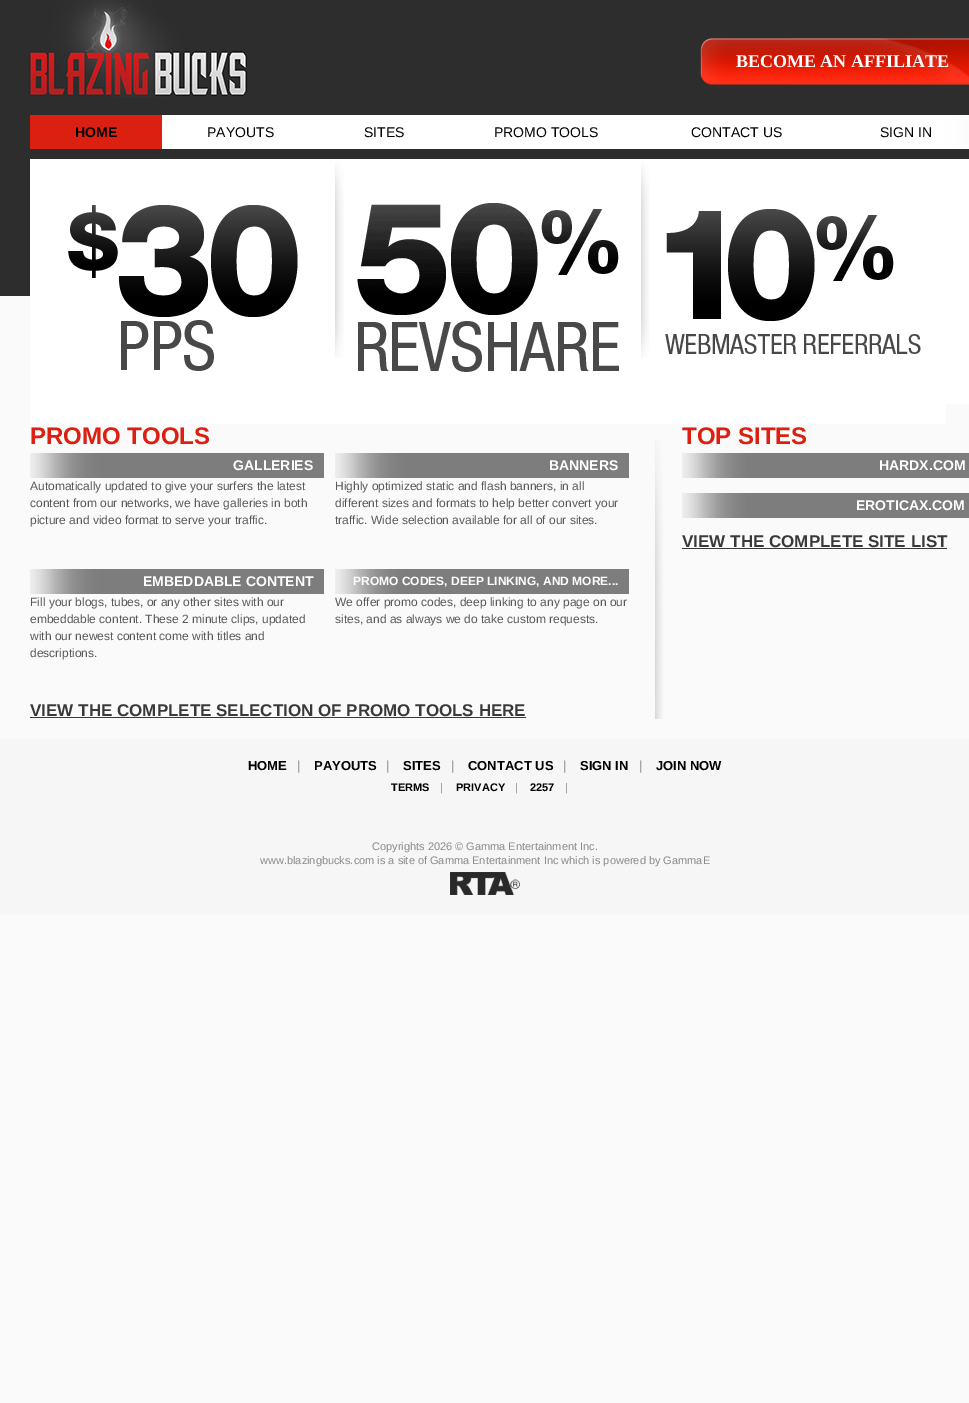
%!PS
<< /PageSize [969 1403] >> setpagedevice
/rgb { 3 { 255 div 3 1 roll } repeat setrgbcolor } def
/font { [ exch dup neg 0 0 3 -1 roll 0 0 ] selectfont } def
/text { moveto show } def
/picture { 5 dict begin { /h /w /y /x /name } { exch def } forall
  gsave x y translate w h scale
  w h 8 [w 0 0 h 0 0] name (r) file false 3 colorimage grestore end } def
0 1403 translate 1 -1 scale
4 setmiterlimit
250 250 250 rgb
0 0 969 1403 rectfill
45 45 45 rgb
0 0 969 296 rectfill
(img_01.rgb) 29 0 218 98 picture
(img_02.rgb) 700 38 269 47 picture
(img_03.rgb) 162 115 807 34 picture
219 32 17 rgb
30 115 132 34 rectfill
255 255 255 rgb
946 159 23 245 rectfill
30 159 916 265 rectfill
(img_04.rgb) 68 205 230 166 picture
(img_05.rgb) 335 162 9 196 picture
(img_06.rgb) 357 203 262 169 picture
(img_05.rgb) 641 162 9 196 picture
(img_07.rgb) 665 209 256 145 picture
(img_08.rgb) 655 439 8 280 picture
(img_09.rgb) 30 453 294 25 picture
(img_09.rgb) 335 453 294 25 picture
(img_09.rgb) 30 569 294 25 picture
(img_09.rgb) 335 569 294 25 picture
57 57 57 rgb
30 717 496 1 rectfill
(img_10.rgb) 682 453 287 25 picture
(img_10.rgb) 682 493 287 25 picture
682 548 265 1 rectfill
246 246 246 rgb
0 739 969 176 rectfill
(img_11.rgb) 450 872 70 23 picture
/LiberationSerif-Bold 18 font
255 255 255 rgb
(BECOME AN AFFILIATE) 736 67 text
/LiberationSans-Bold 14 font
0 0 0 rgb
(HOME) 75 137 text
/LiberationSans-Regular 14 font
(PAYOUTS) 207 137 text
(SITES) 364 137 text
(PROMO TOOLS) 494 137 text
(CONTACT US) 691 137 text
(SIGN IN) 880 137 text
/LiberationSans-Bold 24 font
219 32 17 rgb
(PROMO TOOLS) 30 444 text
/LiberationSans-Bold 14 font
255 255 255 rgb
(GALLERIES) 233 470 text
/LiberationSans-Regular 12 font
89 89 89 rgb
(Automatically updated to give your surfers the latest) 30 490 text
(content from our networks, we have galleries in both) 30 507 text
(picture and video format to serve your traffic.) 30 524 text
/LiberationSans-Bold 14 font
255 255 255 rgb
(BANNERS) 549 470 text
/LiberationSans-Regular 12 font
89 89 89 rgb
(Highly optimized static and flash banners, in all) 335 490 text
(different sizes and formats to help better convert your) 335 507 text
(traffic. Wide selection available for all of our sites.) 335 524 text
/LiberationSans-Bold 14 font
255 255 255 rgb
(EMBEDDABLE CONTENT) 143 586 text
/LiberationSans-Regular 12 font
89 89 89 rgb
(Fill your blogs, tubes, or any other sites with our) 30 606 text
(embeddable content. These 2 minute clips, updated) 30 623 text
(with our newest content come with titles and) 30 640 text
(descriptions.) 30 657 text
/LiberationSans-Bold 12 font
255 255 255 rgb
(PROMO CODES, DEEP LINKING, AND MORE...) 353 585 text
/LiberationSans-Regular 12 font
89 89 89 rgb
(We offer promo codes, deep linking to any page on our) 335 606 text
(sites, and as always we do take custom requests.) 335 623 text
/LiberationSans-Bold 17 font
57 57 57 rgb
(VIEW THE COMPLETE SELECTION OF PROMO TOOLS HERE) 30 716 text
/LiberationSans-Bold 24 font
219 32 17 rgb
(TOP SITES) 682 444 text
/LiberationSans-Bold 14 font
255 255 255 rgb
(HARDX.COM) 879 470 text
(EROTICAX.COM) 856 510 text
/LiberationSans-Bold 17 font
57 57 57 rgb
(VIEW THE COMPLETE SITE LIST) 682 547 text
/LiberationSans-Bold 13 font
0 0 0 rgb
(HOME) 248 770 text
/LiberationSans-Regular 13 font
138 138 138 rgb
(|) 297 770 text
/LiberationSans-Bold 13 font
0 0 0 rgb
(PAYOUTS) 314 770 text
/LiberationSans-Regular 13 font
138 138 138 rgb
(|) 386 770 text
/LiberationSans-Bold 13 font
0 0 0 rgb
(SITES) 403 770 text
/LiberationSans-Regular 13 font
138 138 138 rgb
(|) 451 770 text
/LiberationSans-Bold 13 font
0 0 0 rgb
(CONTACT US) 468 770 text
/LiberationSans-Regular 13 font
138 138 138 rgb
(|) 563 770 text
/LiberationSans-Bold 13 font
0 0 0 rgb
(SIGN IN) 580 770 text
/LiberationSans-Regular 13 font
138 138 138 rgb
(|) 639 770 text
/LiberationSans-Bold 13 font
0 0 0 rgb
(JOIN NOW) 656 770 text
/LiberationSans-Bold 11 font
(TERMS) 391 791 text
/LiberationSans-Regular 11 font
138 138 138 rgb
(|) 440 791 text
/LiberationSans-Bold 11 font
0 0 0 rgb
(PRIVACY) 456 791 text
/LiberationSans-Regular 11 font
138 138 138 rgb
(|) 515 791 text
/LiberationSans-Bold 11 font
0 0 0 rgb
(2257) 530 791 text
/LiberationSans-Regular 11 font
138 138 138 rgb
(|) 565 791 text
(Copyrights 2026 © Gamma Entertainment Inc.) 372 850 text
(www.blazingbucks.com is a site of Gamma Entertainment Inc which is powered by GammaE) 260 864 text
showpage
